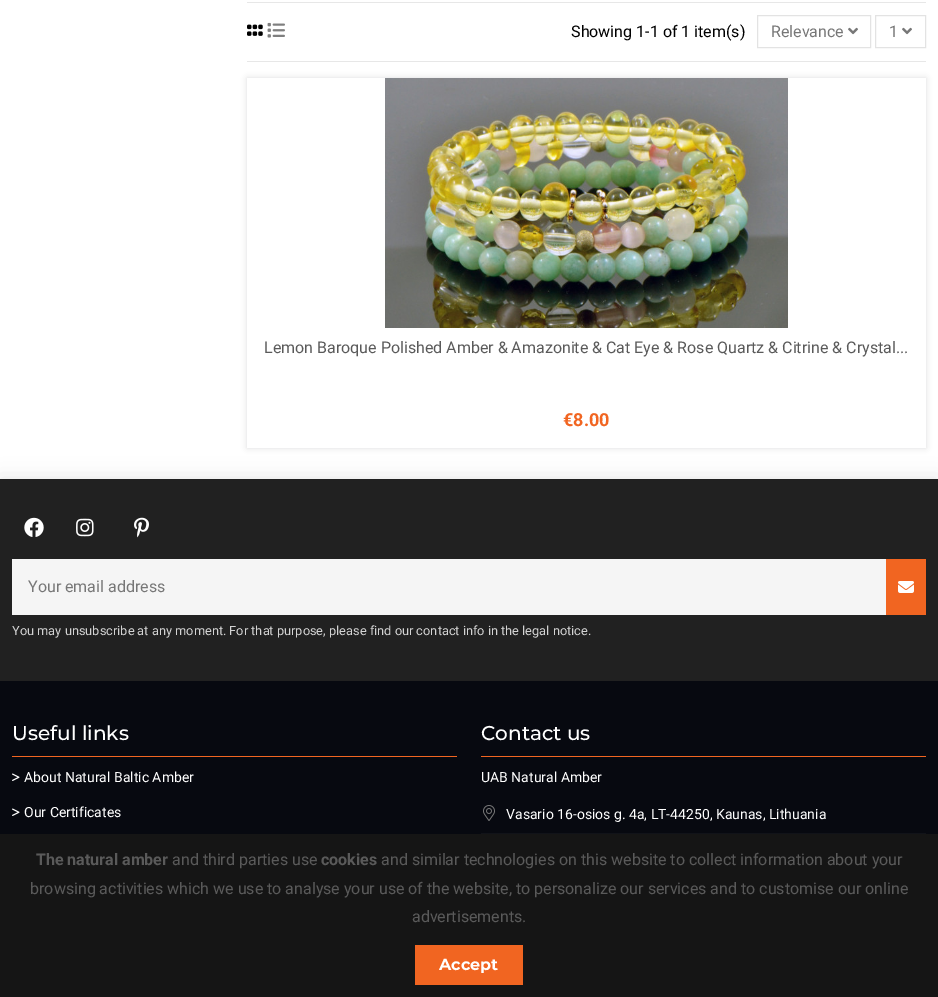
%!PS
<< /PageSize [938 997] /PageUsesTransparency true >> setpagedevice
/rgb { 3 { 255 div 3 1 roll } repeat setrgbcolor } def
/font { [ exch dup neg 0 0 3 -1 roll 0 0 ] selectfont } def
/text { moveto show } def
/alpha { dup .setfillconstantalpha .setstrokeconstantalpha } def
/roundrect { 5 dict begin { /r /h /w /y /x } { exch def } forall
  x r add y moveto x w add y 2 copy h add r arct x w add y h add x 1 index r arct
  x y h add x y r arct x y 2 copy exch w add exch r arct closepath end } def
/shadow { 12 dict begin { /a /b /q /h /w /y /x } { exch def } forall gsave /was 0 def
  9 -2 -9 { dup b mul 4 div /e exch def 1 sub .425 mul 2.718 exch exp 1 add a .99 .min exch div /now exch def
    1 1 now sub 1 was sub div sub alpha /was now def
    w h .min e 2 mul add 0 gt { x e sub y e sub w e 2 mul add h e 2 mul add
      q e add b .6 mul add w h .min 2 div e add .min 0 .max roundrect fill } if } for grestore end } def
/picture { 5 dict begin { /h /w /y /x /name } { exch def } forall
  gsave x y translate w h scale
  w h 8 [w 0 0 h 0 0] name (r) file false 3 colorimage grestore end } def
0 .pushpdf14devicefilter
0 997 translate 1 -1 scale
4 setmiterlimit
255 255 255 rgb
0 0 938 997 rectfill
231 231 231 rgb
247 2 679 1 rectfill
247 61 679 1 rectfill
(img_01.rgb) 247 24 16 12 picture
(img_02.rgb) 267 22 18 16 picture
227 227 227 rgb
757.5 15.5 113 32 rectstroke
(img_03.rgb) 848 27 10 8 picture
875.5 15.5 50 32 rectstroke
(img_03.rgb) 902 27 10 8 picture
gsave
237 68 moveto 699 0 rlineto 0 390 rlineto -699 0 rlineto closepath 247 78 moveto 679 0 rlineto 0 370 rlineto -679 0 rlineto closepath eoclip newpath
40 44 51 rgb
247 78 679 370 0 3 0.16 shadow
grestore
(img_04.rgb) 385 78 403 250 picture
0 0 0 rgb
0 479 938 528 0 10 0.1 shadow
33 33 33 rgb
0 479 938 202 rectfill
(img_05.rgb) 24 517 20 20 picture
(img_06.rgb) 76 518 18 19 picture
(img_07.rgb) 134 517 15 21 picture
245 245 245 rgb
12 559 874 56 rectfill
241 101 33 rgb
886 559 40 56 rectfill
(img_08.rgb) 898 581 16 12 picture
7 9 16 rgb
0 681 938 153 rectfill
241 101 33 rgb
12 756 445 1 rectfill
(img_09.rgb) 12 773 8 8 picture
(img_09.rgb) 12 808 8 8 picture
481 756 445 1 rectfill
(img_10.rgb) 483 805 12 16 picture
17 19 25 rgb
481 833 445 1 rectfill
0 0 0 rgb
0 834 938 163 0 10 0.1 shadow
21 21 21 rgb
0 834 938 163 rectfill
241 101 33 rgb
415 945 108 40 rectfill
/Roboto-Regular 16 font
0 0 0 rgb
(Showing 1-1 of 1 item\(s\)) 571 37 text
119 119 119 rgb
(Relevance) 771 37 text
(1) 889 37 text
90 90 90 rgb
(Lemon Baroque Polished Amber & Amazonite & Cat Eye & Rose Quartz & Citrine & Crystal...) 264 353 text
/Roboto-Bold 18 font
241 101 33 rgb
(€8.00) 563 426 text
/Roboto-Regular 16 font
119 119 119 rgb
(Your email address) 28 592 text
/Roboto-Regular 12.8 font
211 211 211 rgb
(You may unsubscribe at any moment. For that purpose, please find our contact info in the legal notice.) 12 635 text
/Montserrat-Medium 20 font
255 255 255 rgb
(Useful links) 12 740 text
/Roboto-Regular 14 font
(About Natural Baltic Amber) 24 782 text
(Our Certificates) 24 817 text
/Montserrat-Medium 20 font
(Contact us) 481 740 text
/Roboto-Regular 14 font
(UAB Natural Amber) 481 782 text
(Vasario 16-osios g. 4a, LT-44250, Kaunas, Lithuania) 506 819 text
/Roboto-Bold 16 font
90 90 90 rgb
(The natural amber) 36 865 text
/Roboto-Regular 16 font
(and third parties use) 172 865 text
/Roboto-Bold 16 font
(cookies) 321 865 text
/Roboto-Regular 16 font
(and similar technologies on this website to collect information about your) 381 865 text
(browsing activities which we use to analyse your use of the website, to personalize our services and to customise our online) 30 894 text
(advertisements.) 412 922 text
/Montserrat-Bold 16 font
255 255 255 rgb
(Accept) 439 970 text
.poppdf14devicefilter showpage
